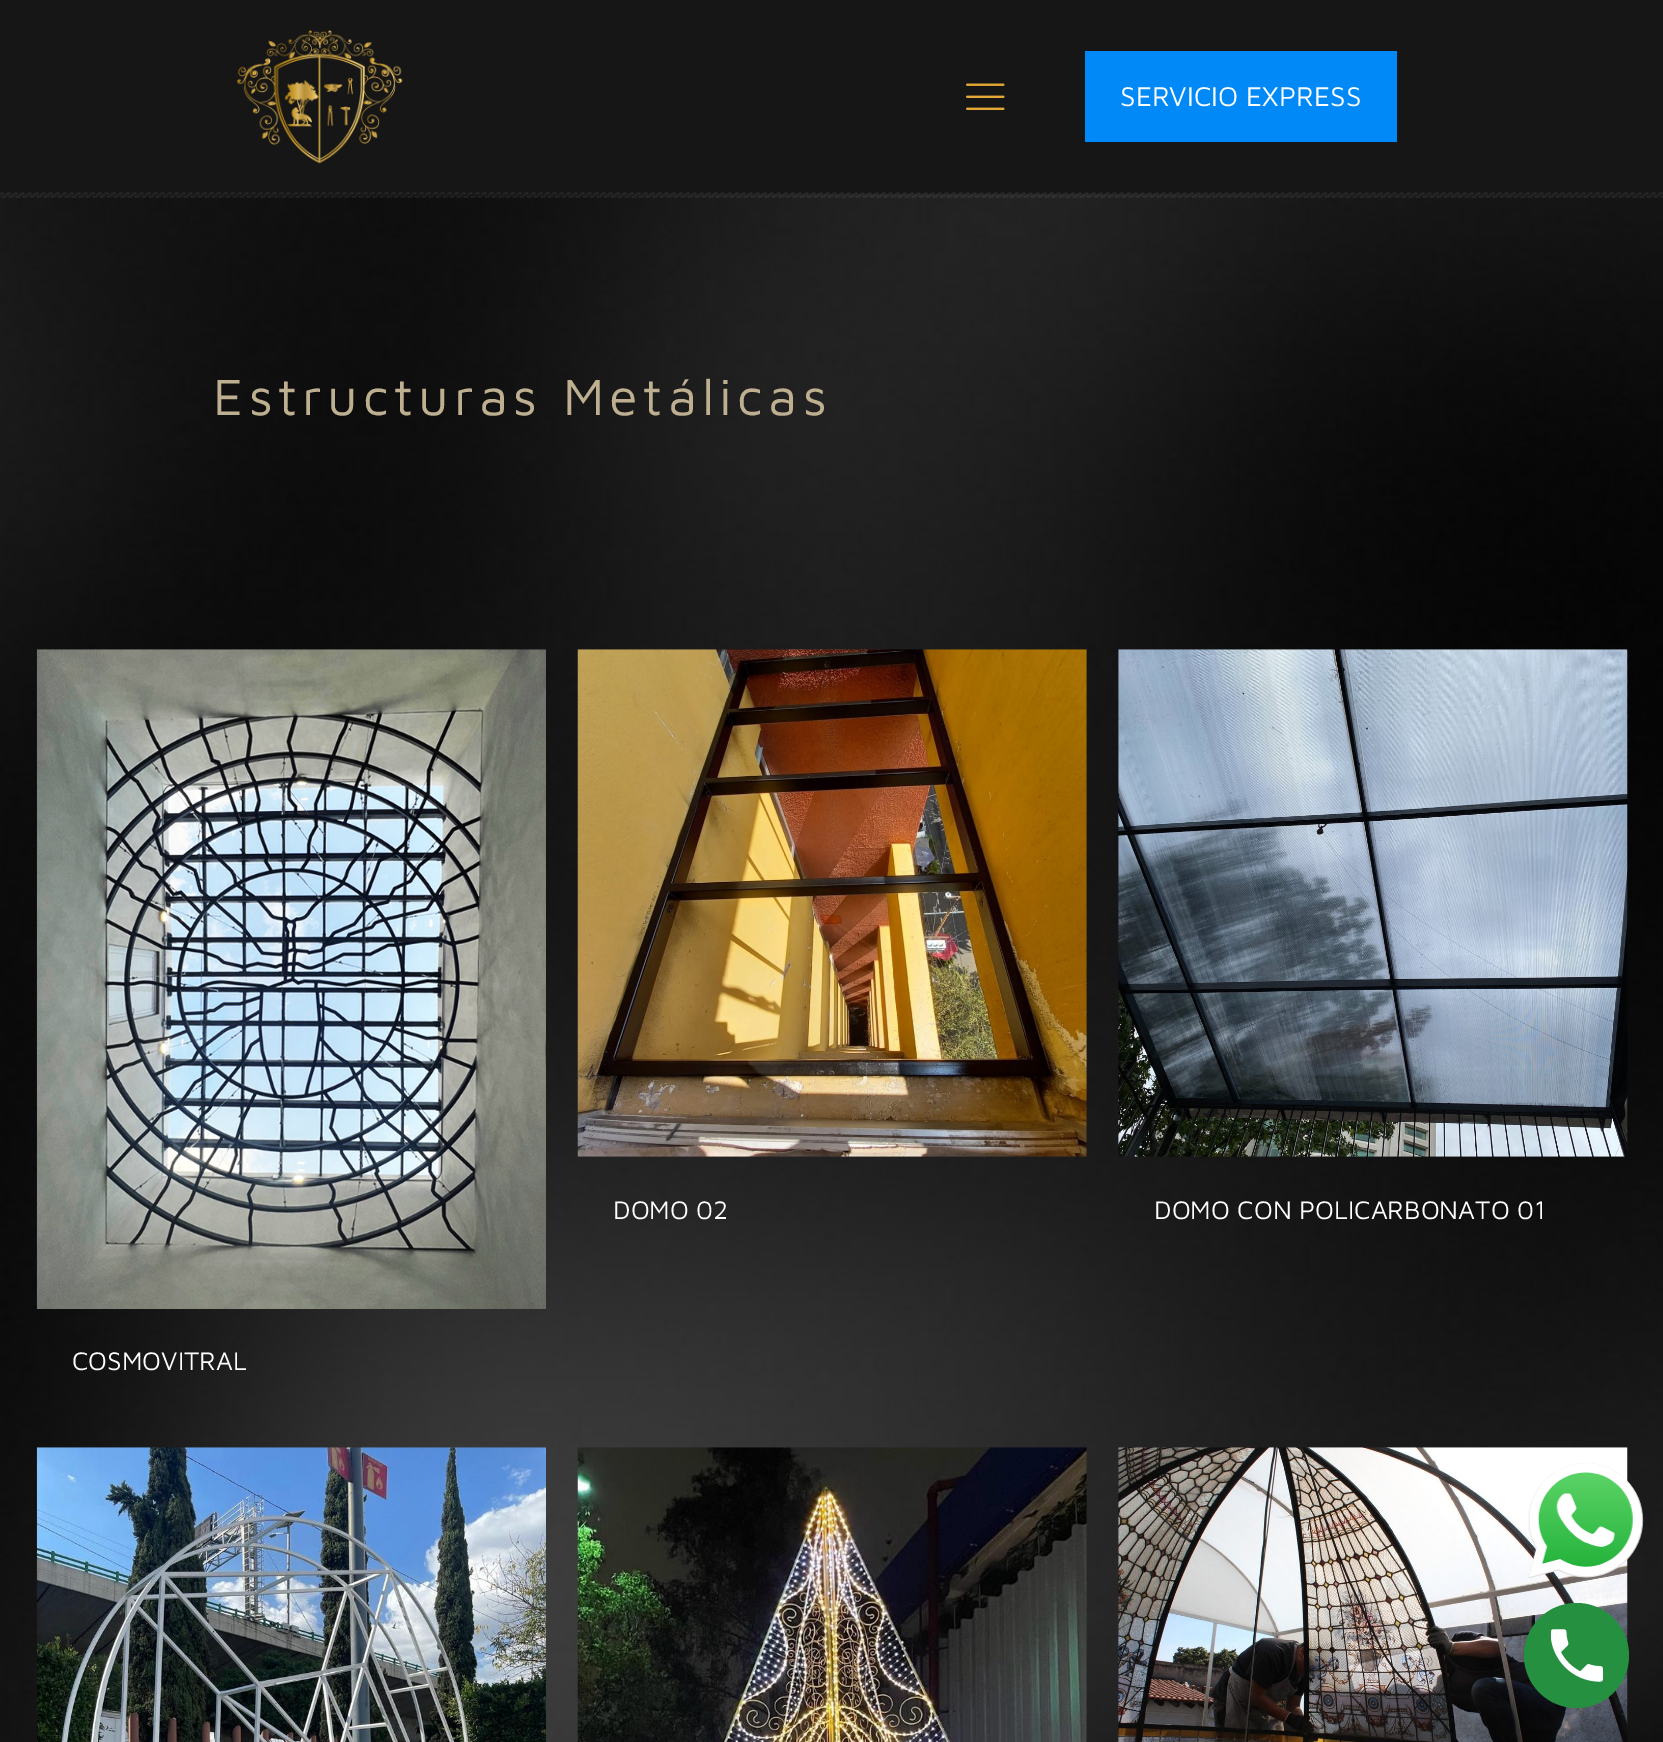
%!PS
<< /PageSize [1663 1742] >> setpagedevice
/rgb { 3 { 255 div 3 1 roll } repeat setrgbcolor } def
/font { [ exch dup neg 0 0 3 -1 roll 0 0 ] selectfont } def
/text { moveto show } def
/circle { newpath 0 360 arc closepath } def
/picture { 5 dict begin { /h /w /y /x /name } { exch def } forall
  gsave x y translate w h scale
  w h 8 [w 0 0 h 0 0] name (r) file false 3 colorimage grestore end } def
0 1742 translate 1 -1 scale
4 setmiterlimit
255 255 255 rgb
0 0 1663 1742 rectfill
(img_01.rgb) 0 194 1663 1548 picture
22 22 22 rgb
0 0 1663 194 rectfill
(img_02.rgb) 237 30 166 134 picture
(img_03.rgb) 966 83 39 27 picture
0 137 247 rgb
1085 51 312 91 rectfill
(img_04.rgb) 0 192 1663 6 picture
(img_05.rgb) 577 649 510 508 picture
(img_06.rgb) 1118 649 510 508 picture
(img_07.rgb) 36 649 510 660 picture
(img_08.rgb) 36 1447 510 295 picture
(img_09.rgb) 577 1447 510 295 picture
(img_10.rgb) 1118 1447 510 295 picture
(img_11.rgb) 1528 1463 116 115 picture
38 144 65 rgb
1576.5 1655.5 52.5 circle fill
(img_12.rgb) 1551 1629 52 53 picture
/MavenPro-Regular 28 font
255 255 255 rgb
(SERVICIO EXPRESS) 1120 106 text
/MavenPro-Regular 52.5 font
190 175 144 rgb
213 415 moveto 5.25 0 (Estructuras Metálicas) ashow
/MavenPro-Regular 26.25 font
255 255 255 rgb
(DOMO 02) 613 1219 text
(DOMO CON POLICARBONATO 01) 1154 1219 text
(COSMOVITRAL) 72 1370 text
showpage
